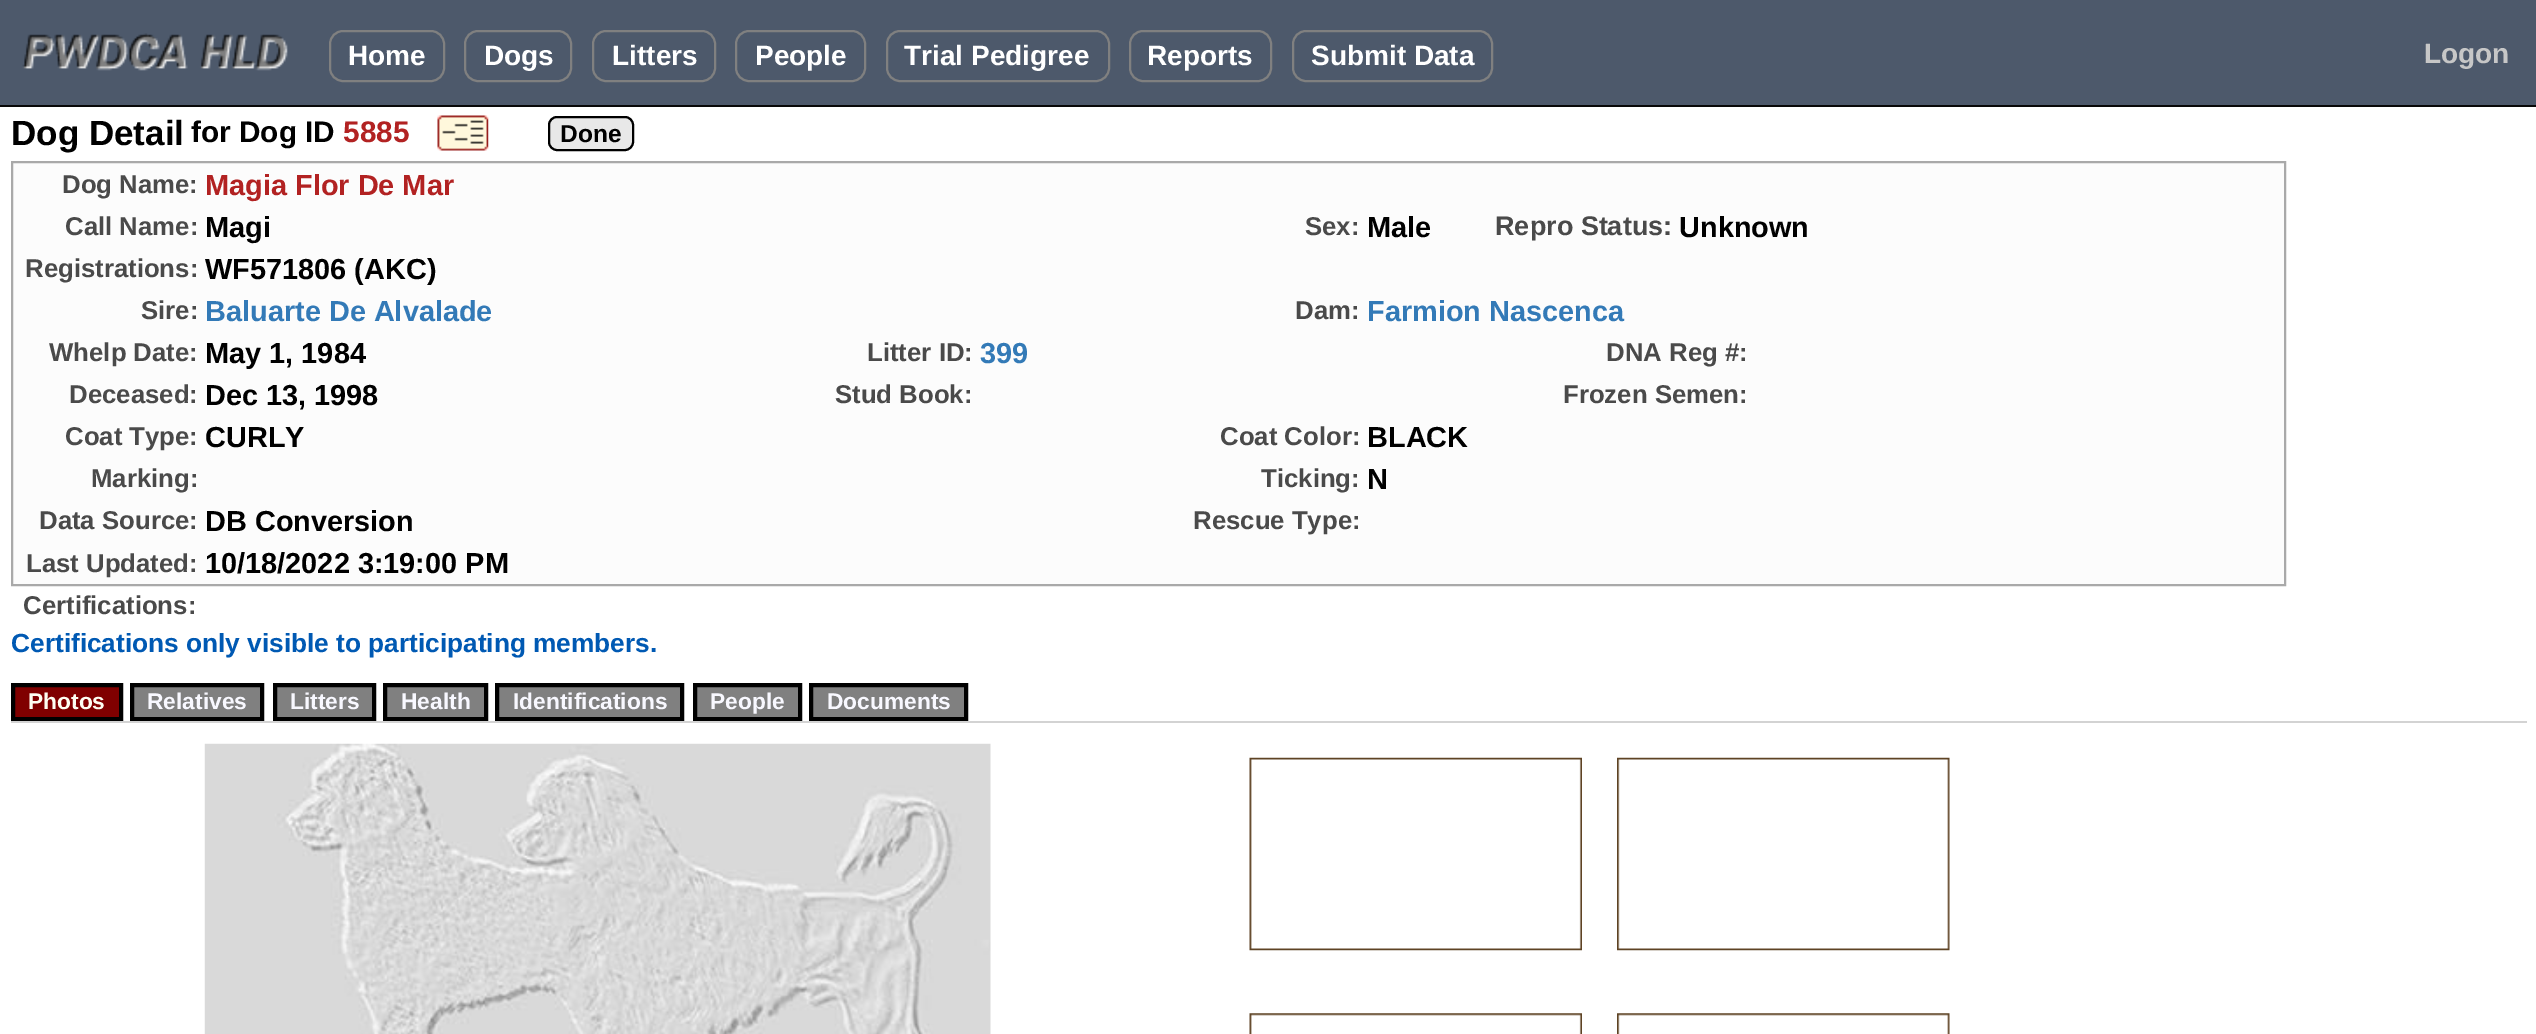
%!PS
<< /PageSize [2536 1034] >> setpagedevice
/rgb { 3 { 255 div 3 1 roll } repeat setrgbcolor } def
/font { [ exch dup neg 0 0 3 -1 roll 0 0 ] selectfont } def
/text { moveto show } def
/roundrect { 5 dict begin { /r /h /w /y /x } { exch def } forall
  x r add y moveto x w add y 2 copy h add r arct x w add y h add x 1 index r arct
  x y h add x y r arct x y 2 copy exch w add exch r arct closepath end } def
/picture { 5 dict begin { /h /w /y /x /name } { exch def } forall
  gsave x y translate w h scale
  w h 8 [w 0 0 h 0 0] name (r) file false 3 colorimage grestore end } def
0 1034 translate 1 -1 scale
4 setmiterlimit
255 255 255 rgb
0 0 2536 1034 rectfill
77 89 107 rgb
0 0 2536 105 rectfill
8 8 8 rgb
0 105 2536 2 rectfill
(img_01.rgb) 22 33 266 38 picture
128 128 128 rgb
2 setlinewidth
330 31 114 50 13 roundrect stroke
465 31 106 50 13 roundrect stroke
593 31 122 50 13 roundrect stroke
736 31 129 50 13 roundrect stroke
887 31 222 50 13 roundrect stroke
1130 31 141 50 13 roundrect stroke
1293 31 199 50 13 roundrect stroke
(img_02.rgb) 437 115 52 36 picture
232 232 232 rgb
549 117 84 33 8 roundrect gsave fill grestore
0 0 0 rgb
stroke
252 252 252 rgb
12 162 moveto 2273 0 rlineto 0 423 rlineto -2273 0 rlineto closepath gsave fill grestore
169 169 169 rgb
stroke
128 0 0 rgb
13 685 moveto 108 0 rlineto 0 34 rlineto -108 0 rlineto closepath gsave fill grestore
0 0 0 rgb
4 setlinewidth
stroke
128 128 128 rgb
132 685 moveto 130 0 rlineto 0 34 rlineto -130 0 rlineto closepath gsave fill grestore
0 0 0 rgb
stroke
128 128 128 rgb
275 685 moveto 99 0 rlineto 0 34 rlineto -99 0 rlineto closepath gsave fill grestore
0 0 0 rgb
stroke
128 128 128 rgb
385 685 moveto 101 0 rlineto 0 34 rlineto -101 0 rlineto closepath gsave fill grestore
0 0 0 rgb
stroke
128 128 128 rgb
497 685 moveto 185 0 rlineto 0 34 rlineto -185 0 rlineto closepath gsave fill grestore
0 0 0 rgb
stroke
128 128 128 rgb
695 685 moveto 105 0 rlineto 0 34 rlineto -105 0 rlineto closepath gsave fill grestore
0 0 0 rgb
stroke
128 128 128 rgb
811 685 moveto 155 0 rlineto 0 34 rlineto -155 0 rlineto closepath gsave fill grestore
0 0 0 rgb
stroke
211 211 211 rgb
11 721 2516 2 rectfill
(img_03.rgb) 204 743 787 291 picture
(img_04.rgb) 1249 757 333 194 picture
(img_05.rgb) 1617 757 333 194 picture
(img_06.rgb) 1249 1013 333 21 picture
(img_07.rgb) 1617 1013 333 21 picture
/LiberationSans-Bold 28 font
255 255 255 rgb
(Home) 348 65 text
(Dogs) 484 65 text
(Litters) 612 65 text
(People) 755 65 text
(Trial Pedigree) 904 65 text
(Reports) 1147 65 text
(Submit Data) 1311 65 text
199 199 199 rgb
(Logon) 2424 63 text
/LiberationSans-Bold 35 font
0 0 0 rgb
(Dog Detail) 11 145 text
/LiberationSans-Bold 29.75 font
(for Dog ID) 191 142 text
178 34 34 rgb
(5885) 343 142 text
/LiberationSans-Bold 24.5 font
0 0 0 rgb
(Done) 560 142 text
/LiberationSans-Bold 25.75 font
74 74 74 rgb
(Dog Name:) 62 193 text
/LiberationSans-Bold 28.9 font
178 34 34 rgb
(Magia Flor De Mar) 205 195 text
/LiberationSans-Bold 25.75 font
74 74 74 rgb
(Call Name:) 65 235 text
/LiberationSans-Bold 28.9 font
0 0 0 rgb
(Magi) 205 237 text
/LiberationSans-Bold 25.75 font
74 74 74 rgb
(Sex:) 1305 235 text
/LiberationSans-Bold 28.9 font
0 0 0 rgb
(Male) 1367 237 text
/LiberationSans-Bold 27 font
74 74 74 rgb
(Repro Status:) 1495 235 text
/LiberationSans-Bold 28.9 font
0 0 0 rgb
(Unknown) 1679 237 text
/LiberationSans-Bold 25.75 font
74 74 74 rgb
(Registrations:) 25 277 text
/LiberationSans-Bold 28.9 font
0 0 0 rgb
(WF571806 \(AKC\)) 205 279 text
/LiberationSans-Bold 25.75 font
74 74 74 rgb
(Sire:) 141 319 text
/LiberationSans-Bold 28.9 font
51 122 183 rgb
(Baluarte De Alvalade) 205 321 text
/LiberationSans-Bold 25.75 font
74 74 74 rgb
(Dam:) 1295 319 text
/LiberationSans-Bold 28.9 font
51 122 183 rgb
(Farmion Nascenca) 1367 321 text
/LiberationSans-Bold 25.75 font
74 74 74 rgb
(Whelp Date:) 49 361 text
/LiberationSans-Bold 28.9 font
0 0 0 rgb
(May 1, 1984) 205 363 text
/LiberationSans-Bold 25.75 font
74 74 74 rgb
(Litter ID:) 867 361 text
/LiberationSans-Bold 28.9 font
51 122 183 rgb
(399) 980 363 text
/LiberationSans-Bold 25.75 font
74 74 74 rgb
(DNA Reg #:) 1606 361 text
(Deceased:) 69 403 text
/LiberationSans-Bold 28.9 font
0 0 0 rgb
(Dec 13, 1998) 205 405 text
/LiberationSans-Bold 25.75 font
74 74 74 rgb
(Stud Book:) 835 403 text
(Frozen Semen:) 1563 403 text
(Coat Type:) 65 445 text
/LiberationSans-Bold 28.9 font
0 0 0 rgb
(CURLY) 205 447 text
/LiberationSans-Bold 25.75 font
74 74 74 rgb
(Coat Color:) 1220 445 text
/LiberationSans-Bold 28.9 font
0 0 0 rgb
(BLACK) 1367 447 text
/LiberationSans-Bold 25.75 font
74 74 74 rgb
(Marking:) 91 487 text
(Ticking:) 1261 487 text
/LiberationSans-Bold 28.9 font
0 0 0 rgb
(N) 1367 489 text
/LiberationSans-Bold 25.75 font
74 74 74 rgb
(Data Source:) 39 529 text
/LiberationSans-Bold 28.9 font
0 0 0 rgb
(DB Conversion) 205 531 text
/LiberationSans-Bold 25.75 font
74 74 74 rgb
(Rescue Type:) 1193 529 text
(Last Updated:) 26 572 text
/LiberationSans-Bold 28.9 font
0 0 0 rgb
(10/18/2022 3:19:00 PM) 205 573 text
/LiberationSans-Bold 25.75 font
74 74 74 rgb
(Certifications:) 23 614 text
/LiberationSans-Bold 26.25 font
0 89 179 rgb
(Certifications only visible to participating members.) 11 652 text
/LiberationSans-Bold 22.75 font
254 254 242 rgb
(Photos) 28 709 text
248 248 255 rgb
(Relatives) 147 709 text
(Litters) 290 709 text
(Health) 401 709 text
(Identifications) 513 709 text
(People) 710 709 text
(Documents) 827 709 text
showpage
